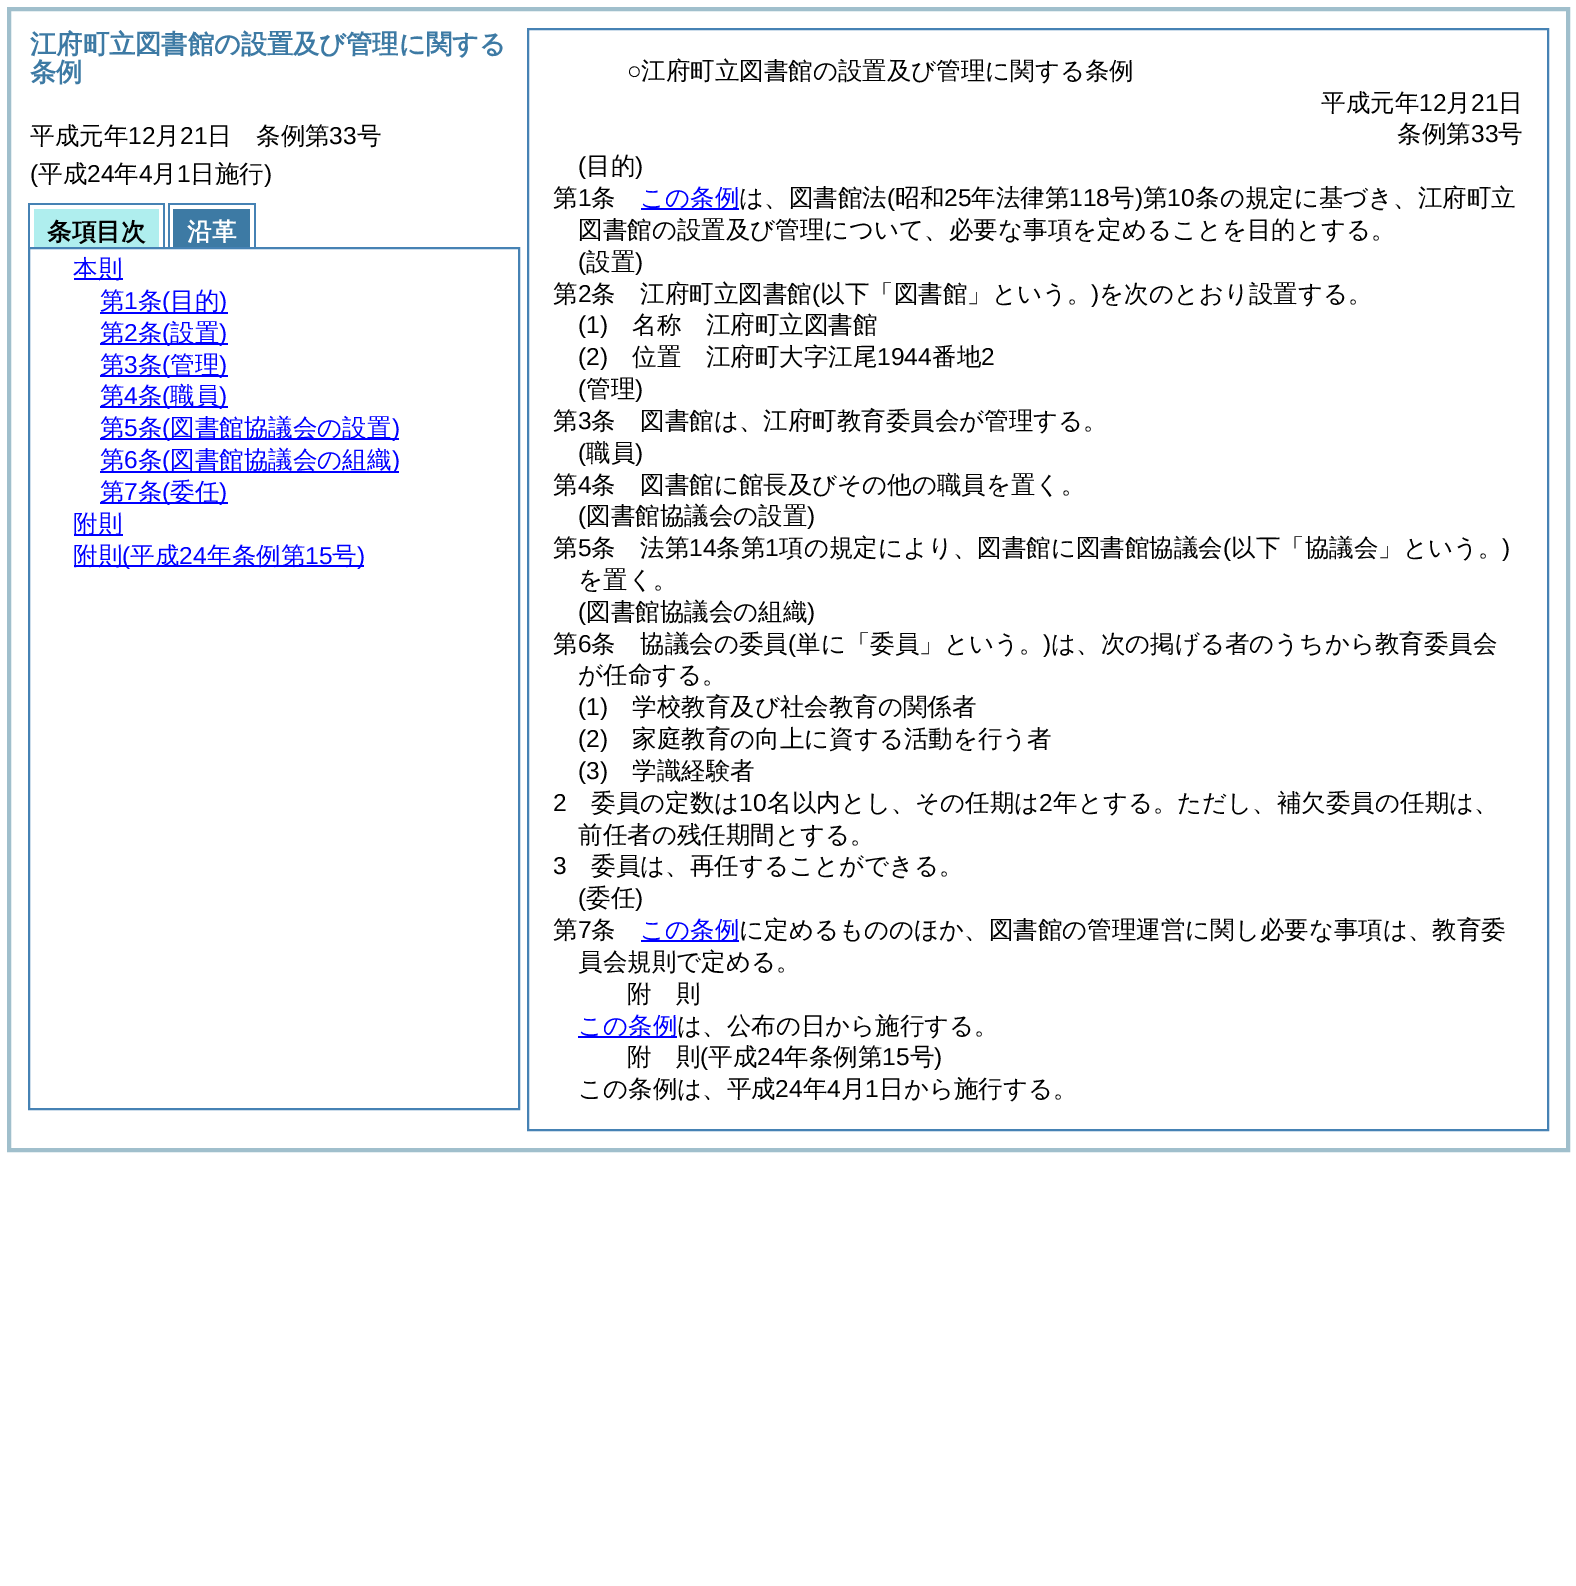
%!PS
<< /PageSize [1576 1586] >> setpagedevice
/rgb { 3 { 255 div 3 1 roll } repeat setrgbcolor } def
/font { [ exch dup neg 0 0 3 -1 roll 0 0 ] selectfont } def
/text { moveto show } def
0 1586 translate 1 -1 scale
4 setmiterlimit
255 255 255 rgb
0 0 1576 1586 rectfill
160 191 204 rgb
4 setlinewidth
9 9 1559 1141 rectstroke
70 130 180 rgb
28 203 137 2 rectfill
163 203 2 46 rectfill
28 203 2 46 rectfill
175 238 238 rgb
34 209 125 38 rectfill
70 130 180 rgb
168 203 88 2 rectfill
254 203 2 46 rectfill
168 203 2 46 rectfill
61 122 164 rgb
173 209 77 38 rectfill
70 130 180 rgb
2 setlinewidth
29 248 490 861 rectstroke
0 0 255 rgb
74 278 49 2 rectfill
100 312 128 2 rectfill
100 343 128 2 rectfill
100 375 128 2 rectfill
100 406 128 2 rectfill
100 438 299 2 rectfill
100 471 299 2 rectfill
100 502 128 2 rectfill
74 534 49 2 rectfill
74 565 290 2 rectfill
70 130 180 rgb
528 29 1020 1101 rectstroke
0 0 255 rgb
641 208 98 2 rectfill
641 940 98 2 rectfill
578 1036 99 2 rectfill
/WenQuanYiZenHei-Bold 26.25 font
61 122 164 rgb
(江府町立図書館の設置及び管理に関する) 30 53 text
(条例) 30 81 text
/WenQuanYiZenHei-Medium 24.5 font
0 0 0 rgb
(平成元年) 30 144 text
/LiberationSans-Regular 24.5 font
(12) 128 144 text
/WenQuanYiZenHei-Medium 24.5 font
(月) 155 144 text
/LiberationSans-Regular 24.5 font
(21) 180 144 text
/WenQuanYiZenHei-Medium 24.5 font
(日　条例第) 207 144 text
/LiberationSans-Regular 24.5 font
(33) 329 144 text
/WenQuanYiZenHei-Medium 24.5 font
(号) 357 144 text
/LiberationSans-Regular 24.5 font
(\() 30 182 text
/WenQuanYiZenHei-Medium 24.5 font
(平成) 38 182 text
/LiberationSans-Regular 24.5 font
(24) 87 182 text
/WenQuanYiZenHei-Medium 24.5 font
(年) 114 182 text
/LiberationSans-Regular 24.5 font
(4) 139 182 text
/WenQuanYiZenHei-Medium 24.5 font
(月) 152 182 text
/LiberationSans-Regular 24.5 font
(1) 177 182 text
/WenQuanYiZenHei-Medium 24.5 font
(日施行) 190 182 text
/LiberationSans-Regular 24.5 font
(\)) 264 182 text
/WenQuanYiZenHei-Bold 24.5 font
(条項目次) 47 240 text
255 255 255 rgb
(沿革) 187 240 text
/WenQuanYiZenHei-Medium 24.5 font
0 0 255 rgb
(本則) 73 277 text
(第) 100 309 text
/LiberationSans-Regular 24.5 font
(1) 124 309 text
/WenQuanYiZenHei-Medium 24.5 font
(条) 138 309 text
/LiberationSans-Regular 24.5 font
(\() 162 309 text
/WenQuanYiZenHei-Medium 24.5 font
(目的) 170 309 text
/LiberationSans-Regular 24.5 font
(\)) 219 309 text
/WenQuanYiZenHei-Medium 24.5 font
(第) 100 341 text
/LiberationSans-Regular 24.5 font
(2) 124 341 text
/WenQuanYiZenHei-Medium 24.5 font
(条) 138 341 text
/LiberationSans-Regular 24.5 font
(\() 162 341 text
/WenQuanYiZenHei-Medium 24.5 font
(設置) 170 341 text
/LiberationSans-Regular 24.5 font
(\)) 219 341 text
/WenQuanYiZenHei-Medium 24.5 font
(第) 100 373 text
/LiberationSans-Regular 24.5 font
(3) 124 373 text
/WenQuanYiZenHei-Medium 24.5 font
(条) 138 373 text
/LiberationSans-Regular 24.5 font
(\() 162 373 text
/WenQuanYiZenHei-Medium 24.5 font
(管理) 170 373 text
/LiberationSans-Regular 24.5 font
(\)) 219 373 text
/WenQuanYiZenHei-Medium 24.5 font
(第) 100 404 text
/LiberationSans-Regular 24.5 font
(4) 124 404 text
/WenQuanYiZenHei-Medium 24.5 font
(条) 138 404 text
/LiberationSans-Regular 24.5 font
(\() 162 404 text
/WenQuanYiZenHei-Medium 24.5 font
(職員) 170 404 text
/LiberationSans-Regular 24.5 font
(\)) 219 404 text
/WenQuanYiZenHei-Medium 24.5 font
(第) 100 436 text
/LiberationSans-Regular 24.5 font
(5) 124 436 text
/WenQuanYiZenHei-Medium 24.5 font
(条) 138 436 text
/LiberationSans-Regular 24.5 font
(\() 162 436 text
/WenQuanYiZenHei-Medium 24.5 font
(図書館協議会の設置) 170 436 text
/LiberationSans-Regular 24.5 font
(\)) 392 436 text
/WenQuanYiZenHei-Medium 24.5 font
(第) 100 468 text
/LiberationSans-Regular 24.5 font
(6) 124 468 text
/WenQuanYiZenHei-Medium 24.5 font
(条) 138 468 text
/LiberationSans-Regular 24.5 font
(\() 162 468 text
/WenQuanYiZenHei-Medium 24.5 font
(図書館協議会の組織) 170 468 text
/LiberationSans-Regular 24.5 font
(\)) 392 468 text
/WenQuanYiZenHei-Medium 24.5 font
(第) 100 500 text
/LiberationSans-Regular 24.5 font
(7) 124 500 text
/WenQuanYiZenHei-Medium 24.5 font
(条) 138 500 text
/LiberationSans-Regular 24.5 font
(\() 162 500 text
/WenQuanYiZenHei-Medium 24.5 font
(委任) 170 500 text
/LiberationSans-Regular 24.5 font
(\)) 219 500 text
/WenQuanYiZenHei-Medium 24.5 font
(附則) 73 532 text
(附則) 73 564 text
/LiberationSans-Regular 24.5 font
(\() 122 564 text
/WenQuanYiZenHei-Medium 24.5 font
(平成) 130 564 text
/LiberationSans-Regular 24.5 font
(24) 179 564 text
/WenQuanYiZenHei-Medium 24.5 font
(年条例第) 207 564 text
/LiberationSans-Regular 24.5 font
(15) 305 564 text
/WenQuanYiZenHei-Medium 24.5 font
(号) 332 564 text
/LiberationSans-Regular 24.5 font
(\)) 357 564 text
0 0 0 rgb
(○) 627 79 text
/WenQuanYiZenHei-Medium 24.5 font
(江府町立図書館の設置及び管理に関する条例) 641 79 text
(平成元年) 1321 111 text
/LiberationSans-Regular 24.5 font
(12) 1419 111 text
/WenQuanYiZenHei-Medium 24.5 font
(月) 1446 111 text
/LiberationSans-Regular 24.5 font
(21) 1471 111 text
/WenQuanYiZenHei-Medium 24.5 font
(日) 1498 111 text
(条例第) 1397 142 text
/LiberationSans-Regular 24.5 font
(33) 1471 142 text
/WenQuanYiZenHei-Medium 24.5 font
(号) 1498 142 text
/LiberationSans-Regular 24.5 font
(\() 578 174 text
/WenQuanYiZenHei-Medium 24.5 font
(目的) 586 174 text
/LiberationSans-Regular 24.5 font
(\)) 635 174 text
/WenQuanYiZenHei-Medium 24.5 font
(第) 553 206 text
/LiberationSans-Regular 24.5 font
(1) 578 206 text
/WenQuanYiZenHei-Medium 24.5 font
(条) 591 206 text
0 0 255 rgb
(この条例) 640 206 text
0 0 0 rgb
(は、図書館法) 739 206 text
/LiberationSans-Regular 24.5 font
(\() 887 206 text
/WenQuanYiZenHei-Medium 24.5 font
(昭和) 895 206 text
/LiberationSans-Regular 24.5 font
(25) 944 206 text
/WenQuanYiZenHei-Medium 24.5 font
(年法律第) 971 206 text
/LiberationSans-Regular 24.5 font
(118) 1069 206 text
/WenQuanYiZenHei-Medium 24.5 font
(号) 1110 206 text
/LiberationSans-Regular 24.5 font
(\)) 1135 206 text
/WenQuanYiZenHei-Medium 24.5 font
(第) 1143 206 text
/LiberationSans-Regular 24.5 font
(10) 1167 206 text
/WenQuanYiZenHei-Medium 24.5 font
(条の規定に基づき、江府町立) 1195 206 text
(図書館の設置及び管理について、必要な事項を定めることを目的とする。) 578 238 text
/LiberationSans-Regular 24.5 font
(\() 578 270 text
/WenQuanYiZenHei-Medium 24.5 font
(設置) 586 270 text
/LiberationSans-Regular 24.5 font
(\)) 635 270 text
/WenQuanYiZenHei-Medium 24.5 font
(第) 553 302 text
/LiberationSans-Regular 24.5 font
(2) 578 302 text
/WenQuanYiZenHei-Medium 24.5 font
(条) 591 302 text
(江府町立図書館) 640 302 text
/LiberationSans-Regular 24.5 font
(\() 812 302 text
/WenQuanYiZenHei-Medium 24.5 font
(以下「図書館」という。) 820 302 text
/LiberationSans-Regular 24.5 font
(\)) 1091 302 text
/WenQuanYiZenHei-Medium 24.5 font
(を次のとおり設置する。) 1099 302 text
/LiberationSans-Regular 24.5 font
(\(1\)) 578 333 text
/WenQuanYiZenHei-Medium 24.5 font
(名称　江府町立図書館) 632 333 text
/LiberationSans-Regular 24.5 font
(\(2\)) 578 365 text
/WenQuanYiZenHei-Medium 24.5 font
(位置　江府町大字江尾) 632 365 text
/LiberationSans-Regular 24.5 font
(1944) 877 365 text
/WenQuanYiZenHei-Medium 24.5 font
(番地) 932 365 text
/LiberationSans-Regular 24.5 font
(2) 981 365 text
(\() 578 397 text
/WenQuanYiZenHei-Medium 24.5 font
(管理) 586 397 text
/LiberationSans-Regular 24.5 font
(\)) 635 397 text
/WenQuanYiZenHei-Medium 24.5 font
(第) 553 429 text
/LiberationSans-Regular 24.5 font
(3) 578 429 text
/WenQuanYiZenHei-Medium 24.5 font
(条) 591 429 text
(図書館は、江府町教育委員会が管理する。) 640 429 text
/LiberationSans-Regular 24.5 font
(\() 578 461 text
/WenQuanYiZenHei-Medium 24.5 font
(職員) 586 461 text
/LiberationSans-Regular 24.5 font
(\)) 635 461 text
/WenQuanYiZenHei-Medium 24.5 font
(第) 553 493 text
/LiberationSans-Regular 24.5 font
(4) 578 493 text
/WenQuanYiZenHei-Medium 24.5 font
(条) 591 493 text
(図書館に館長及びその他の職員を置く。) 640 493 text
/LiberationSans-Regular 24.5 font
(\() 578 524 text
/WenQuanYiZenHei-Medium 24.5 font
(図書館協議会の設置) 586 524 text
/LiberationSans-Regular 24.5 font
(\)) 807 524 text
/WenQuanYiZenHei-Medium 24.5 font
(第) 553 556 text
/LiberationSans-Regular 24.5 font
(5) 578 556 text
/WenQuanYiZenHei-Medium 24.5 font
(条) 591 556 text
(法第) 640 556 text
/LiberationSans-Regular 24.5 font
(14) 689 556 text
/WenQuanYiZenHei-Medium 24.5 font
(条第) 716 556 text
/LiberationSans-Regular 24.5 font
(1) 765 556 text
/WenQuanYiZenHei-Medium 24.5 font
(項の規定により、図書館に図書館協議会) 779 556 text
/LiberationSans-Regular 24.5 font
(\() 1223 556 text
/WenQuanYiZenHei-Medium 24.5 font
(以下「協議会」という。) 1231 556 text
/LiberationSans-Regular 24.5 font
(\)) 1502 556 text
/WenQuanYiZenHei-Medium 24.5 font
(を置く。) 578 588 text
/LiberationSans-Regular 24.5 font
(\() 578 620 text
/WenQuanYiZenHei-Medium 24.5 font
(図書館協議会の組織) 586 620 text
/LiberationSans-Regular 24.5 font
(\)) 807 620 text
/WenQuanYiZenHei-Medium 24.5 font
(第) 553 652 text
/LiberationSans-Regular 24.5 font
(6) 578 652 text
/WenQuanYiZenHei-Medium 24.5 font
(条) 591 652 text
(協議会の委員) 640 652 text
/LiberationSans-Regular 24.5 font
(\() 788 652 text
/WenQuanYiZenHei-Medium 24.5 font
(単に「委員」という。) 796 652 text
/LiberationSans-Regular 24.5 font
(\)) 1043 652 text
/WenQuanYiZenHei-Medium 24.5 font
(は、次の掲げる者のうちから教育委員会) 1051 652 text
(が任命する。) 578 683 text
/LiberationSans-Regular 24.5 font
(\(1\)) 578 715 text
/WenQuanYiZenHei-Medium 24.5 font
(学校教育及び社会教育の関係者) 632 715 text
/LiberationSans-Regular 24.5 font
(\(2\)) 578 747 text
/WenQuanYiZenHei-Medium 24.5 font
(家庭教育の向上に資する活動を行う者) 632 747 text
/LiberationSans-Regular 24.5 font
(\(3\)) 578 779 text
/WenQuanYiZenHei-Medium 24.5 font
(学識経験者) 632 779 text
/LiberationSans-Regular 24.5 font
(2) 553 811 text
/WenQuanYiZenHei-Medium 24.5 font
(委員の定数は) 591 811 text
/LiberationSans-Regular 24.5 font
(10) 739 811 text
/WenQuanYiZenHei-Medium 24.5 font
(名以内とし、その任期は) 767 811 text
/LiberationSans-Regular 24.5 font
(2) 1039 811 text
/WenQuanYiZenHei-Medium 24.5 font
(年とする。ただし、補欠委員の任期は、) 1053 811 text
(前任者の残任期間とする。) 578 843 text
/LiberationSans-Regular 24.5 font
(3) 553 874 text
/WenQuanYiZenHei-Medium 24.5 font
(委員は、再任することができる。) 591 874 text
/LiberationSans-Regular 24.5 font
(\() 578 906 text
/WenQuanYiZenHei-Medium 24.5 font
(委任) 586 906 text
/LiberationSans-Regular 24.5 font
(\)) 635 906 text
/WenQuanYiZenHei-Medium 24.5 font
(第) 553 938 text
/LiberationSans-Regular 24.5 font
(7) 578 938 text
/WenQuanYiZenHei-Medium 24.5 font
(条) 591 938 text
0 0 255 rgb
(この条例) 640 938 text
0 0 0 rgb
(に定めるもののほか、図書館の管理運営に関し必要な事項は、教育委) 739 938 text
(員会規則で定める。) 578 970 text
627 1002 moveto 25 0 (附) ashow
(則) 676 1002 text
0 0 255 rgb
(この条例) 578 1034 text
0 0 0 rgb
(は、公布の日から施行する。) 677 1034 text
627 1065 moveto 25 0 (附) ashow
(則) 676 1065 text
/LiberationSans-Regular 24.5 font
(\() 700 1065 text
/WenQuanYiZenHei-Medium 24.5 font
(平成) 708 1065 text
/LiberationSans-Regular 24.5 font
(24) 757 1065 text
/WenQuanYiZenHei-Medium 24.5 font
(年条例第) 784 1065 text
/LiberationSans-Regular 24.5 font
(15) 882 1065 text
/WenQuanYiZenHei-Medium 24.5 font
(号) 910 1065 text
/LiberationSans-Regular 24.5 font
(\)) 934 1065 text
/WenQuanYiZenHei-Medium 24.5 font
(この条例は、平成) 578 1097 text
/LiberationSans-Regular 24.5 font
(24) 775 1097 text
/WenQuanYiZenHei-Medium 24.5 font
(年) 803 1097 text
/LiberationSans-Regular 24.5 font
(4) 827 1097 text
/WenQuanYiZenHei-Medium 24.5 font
(月) 841 1097 text
/LiberationSans-Regular 24.5 font
(1) 865 1097 text
/WenQuanYiZenHei-Medium 24.5 font
(日から施行する。) 879 1097 text
showpage
